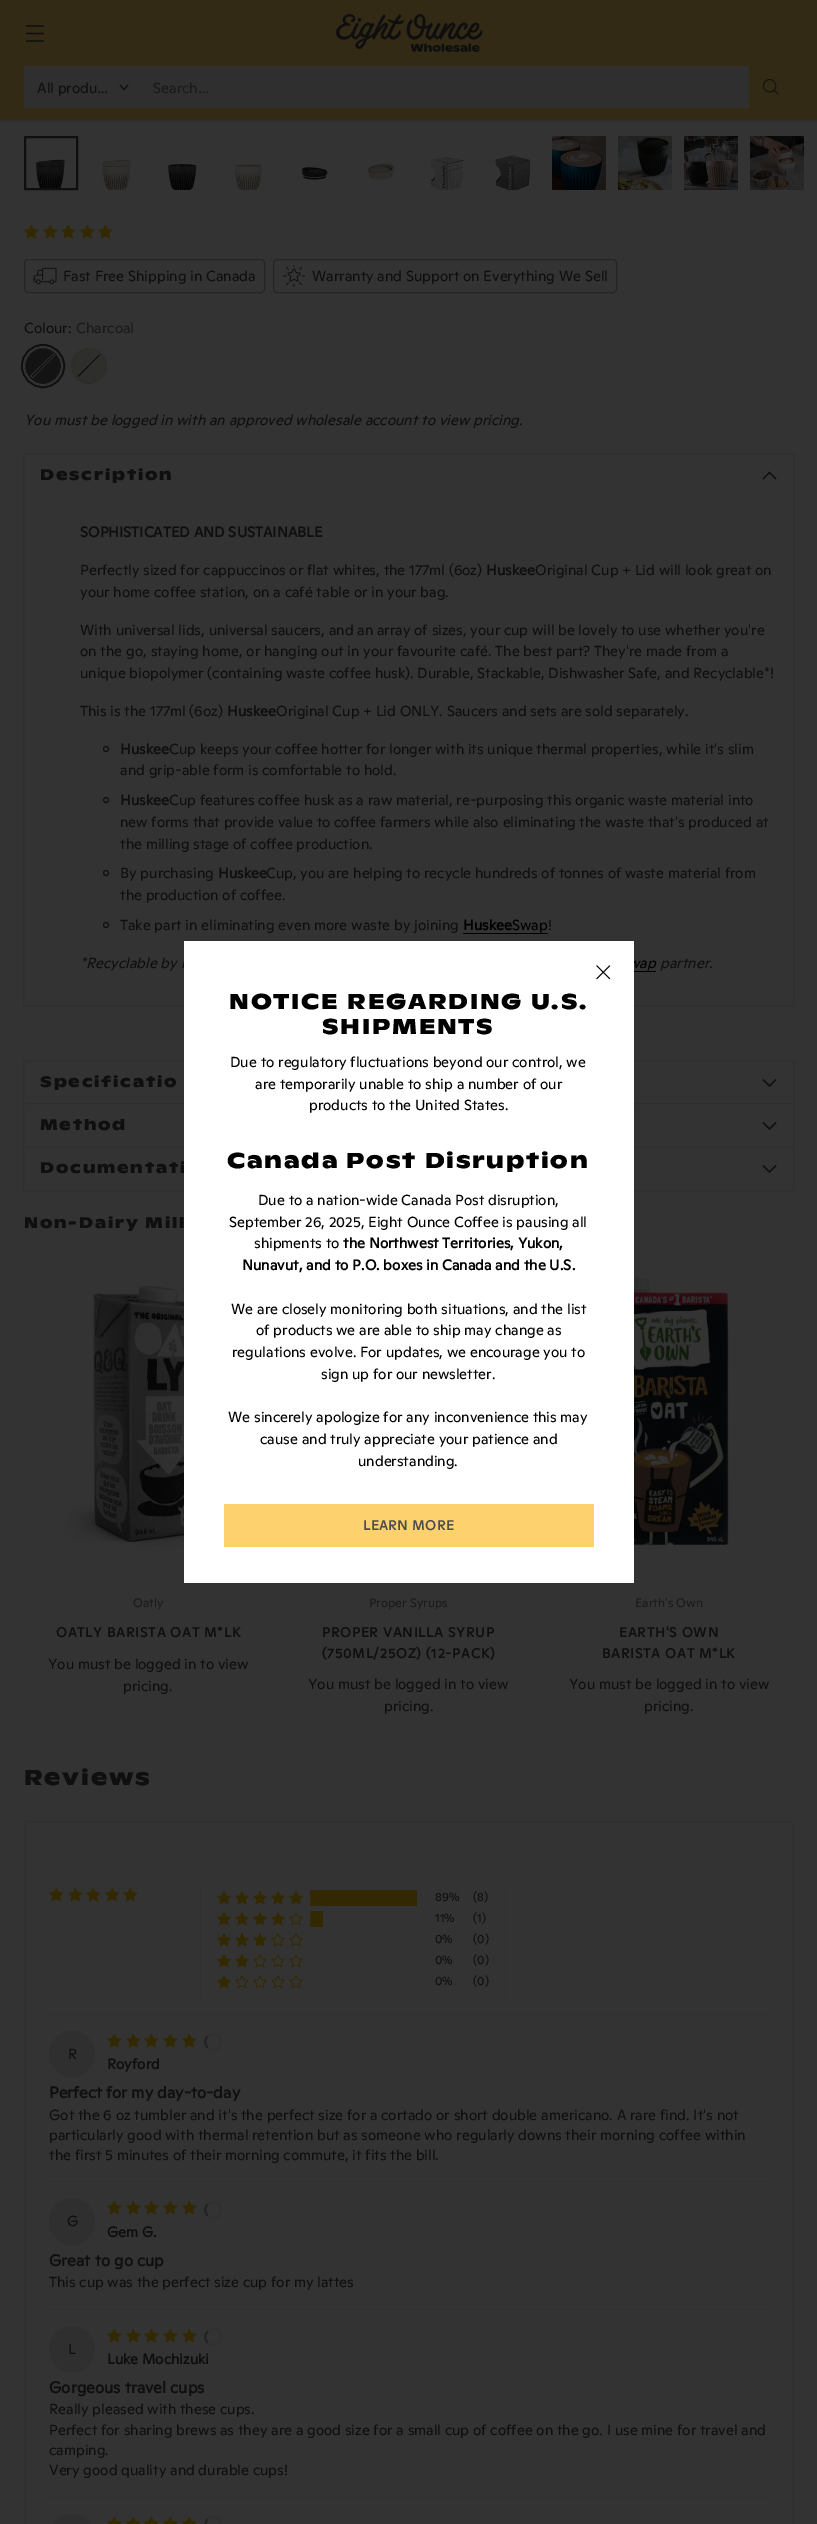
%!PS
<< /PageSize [817 2524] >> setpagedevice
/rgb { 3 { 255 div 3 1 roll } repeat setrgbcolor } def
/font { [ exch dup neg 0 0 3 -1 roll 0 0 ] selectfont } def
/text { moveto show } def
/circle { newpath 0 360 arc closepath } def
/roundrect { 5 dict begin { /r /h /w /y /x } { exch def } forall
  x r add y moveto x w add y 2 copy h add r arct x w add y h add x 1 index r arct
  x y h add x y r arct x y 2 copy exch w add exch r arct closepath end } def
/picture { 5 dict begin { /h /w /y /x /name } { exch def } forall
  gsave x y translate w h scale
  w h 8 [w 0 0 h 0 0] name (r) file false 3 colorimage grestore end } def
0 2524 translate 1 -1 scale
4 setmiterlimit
51 51 51 rgb
0 0 817 2524 rectfill
46 46 46 rgb
-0.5 -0.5 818 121 rectstroke
51 42 22 rgb
0 0 817 120 rectfill
15 15 15 rgb
1.3 setlinewidth
26 33.5 moveto 18 0 rlineto 26 26 moveto 18 0 rlineto 26 41 moveto 18 0 rlineto stroke
(img_01.rgb) 335 13 148 40 picture
47 47 47 rgb
1 setlinewidth
24.5 66.5 768 41 rectstroke
25 67 724 40 rectfill
15 15 15 rgb
1.1 setlinewidth
120 85 moveto 4 4.5 rlineto 4 -4.5 rlineto stroke
51 42 22 rgb
749 66 44 42 rectfill
(img_02.rgb) 763 79 16 16 picture
(img_03.rgb) 36 159 29 29 picture
15 15 15 rgb
2 setlinewidth
25 137 52 52 rectstroke
(img_04.rgb) 102 159 29 31 picture
(img_05.rgb) 168 164 29 26 picture
(img_06.rgb) 234 164 29 26 picture
(img_07.rgb) 302 166 27 15 picture
(img_08.rgb) 367 163 27 18 picture
(img_09.rgb) 430 157 34 33 picture
(img_10.rgb) 495 155 36 35 picture
(img_11.rgb) 552 136 54 54 picture
(img_12.rgb) 618 136 54 54 picture
(img_13.rgb) 684 136 54 54 picture
(img_14.rgb) 750 136 54 54 picture
(img_15.rgb) 24 224 15 15 picture
(img_15.rgb) 43 224 15 15 picture
(img_15.rgb) 61 224 15 15 picture
(img_15.rgb) 80 224 15 15 picture
(img_15.rgb) 98 224 15 15 picture
37 37 37 rgb
1 setlinewidth
24.5 259.5 240 33 3.5 roundrect stroke
(img_16.rgb) 33 267 24 18 picture
273.5 259.5 343 33 3.5 roundrect stroke
(img_17.rgb) 283 265 22 22 picture
15 15 15 rgb
3 setlinewidth
43 366 20.5 circle stroke
51 51 51 rgb
1 setlinewidth
43 366 19.5 circle stroke
19 19 19 rgb
43 366 18.5 circle gsave fill grestore
51 51 51 rgb
stroke
31 376 moveto 22.5 -22 rlineto 1 1 rlineto -22 22.5 rlineto closepath stroke
15 15 15 rgb
31.5 376 moveto 22 -21.5 rlineto 0.5 0.5 rlineto -21.5 22 rlineto closepath fill
46 46 43 rgb
89 366 19 circle fill
43 43 41 rgb
89 366 17.5 circle stroke
51 51 51 rgb
89 366 18.5 circle stroke
77 376 moveto 22.5 -22 rlineto 1 1 rlineto -22 22.5 rlineto closepath stroke
15 15 15 rgb
77.5 376 moveto 22 -21.5 rlineto 0.5 0.5 rlineto -21.5 22 rlineto closepath fill
47 47 47 rgb
23.5 453.5 770 552 rectstroke
15 15 15 rgb
1.2 setlinewidth
763 479 moveto 6.5 -6.5 rlineto 6.5 6.5 rlineto stroke
1 setlinewidth
106 749 2.5 circle stroke
106 800 2.5 circle stroke
106 873 2.5 circle stroke
106 925 2.5 circle stroke
0 0 0 rgb
463 933 85 1 rectfill
634 971 22 1 rectfill
47 47 47 rgb
23.5 1060.5 770 44 rectstroke
23.5 1103.5 770 44 rectstroke
51 51 51 rgb
24 1104 769 1 rectfill
15 15 15 rgb
1.2 setlinewidth
763 1079.5 moveto 6.5 6.5 rlineto 6.5 -6.5 rlineto 763 1122.5 moveto 6.5 6.5 rlineto 6.5 -6.5 rlineto stroke
47 47 47 rgb
1 setlinewidth
23.5 1146.5 770 44 rectstroke
51 51 51 rgb
24 1147 769 1 rectfill
15 15 15 rgb
1.2 setlinewidth
763 1165.5 moveto 6.5 6.5 rlineto 6.5 -6.5 rlineto stroke
(img_18.rgb) 63 1285 121 262 picture
(img_19.rgb) 634 1277 95 269 picture
48 48 48 rgb
1 setlinewidth
24.5 1821.5 768 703 rectstroke
(img_15.rgb) 49 1887 15 15 picture
(img_15.rgb) 68 1887 15 15 picture
(img_15.rgb) 86 1887 15 15 picture
(img_15.rgb) 105 1887 15 15 picture
(img_15.rgb) 123 1887 15 15 picture
505 1885 1 113 rectfill
200 1885 1 113 rectfill
(img_20.rgb) 217 1891 14 14 picture
(img_20.rgb) 235 1891 14 14 picture
(img_20.rgb) 253 1891 14 14 picture
(img_20.rgb) 271 1891 14 14 picture
(img_20.rgb) 289 1891 14 14 picture
50 41 2 rgb
310 1890 107 16 rectfill
(img_20.rgb) 217 1912 14 14 picture
(img_20.rgb) 235 1912 14 14 picture
(img_20.rgb) 253 1912 14 14 picture
(img_20.rgb) 271 1912 14 14 picture
(img_21.rgb) 289 1912 14 14 picture
310 1911 13 16 rectfill
(img_20.rgb) 217 1933 14 14 picture
(img_20.rgb) 235 1933 14 14 picture
(img_20.rgb) 253 1933 14 14 picture
(img_21.rgb) 271 1933 14 14 picture
(img_21.rgb) 289 1933 14 14 picture
(img_20.rgb) 217 1954 14 14 picture
(img_20.rgb) 235 1954 14 14 picture
(img_21.rgb) 253 1954 14 14 picture
(img_21.rgb) 271 1954 14 14 picture
(img_21.rgb) 289 1954 14 14 picture
(img_20.rgb) 217 1975 14 14 picture
(img_21.rgb) 235 1975 14 14 picture
(img_21.rgb) 253 1975 14 14 picture
(img_21.rgb) 271 1975 14 14 picture
(img_21.rgb) 289 1975 14 14 picture
48 48 48 rgb
49 2014 719 1 rectfill
(img_15.rgb) 107 2033 15 15 picture
(img_15.rgb) 126 2033 15 15 picture
(img_15.rgb) 144 2033 15 15 picture
(img_15.rgb) 163 2033 15 15 picture
(img_15.rgb) 182 2033 15 15 picture
2 setlinewidth
207.5 2036.5 moveto 1.5 -2 4.5 -3 7 -2.5 rcurveto 9.5 2 8 16 -1.5 16 rcurveto -2 0 -4 -1 -5.5 -2.5 rcurveto stroke
34 34 34 rgb
207.5 2047.5 moveto -3 -3 -3 -8 0 -11 rcurveto stroke
47 47 47 rgb
72 2054 23 circle fill
48 48 48 rgb
49 2181 719 1 rectfill
(img_15.rgb) 107 2200 15 15 picture
(img_15.rgb) 126 2200 15 15 picture
(img_15.rgb) 144 2200 15 15 picture
(img_15.rgb) 163 2200 15 15 picture
(img_15.rgb) 182 2200 15 15 picture
207.5 2204.5 moveto 1.5 -2 4.5 -3 7 -2.5 rcurveto 9.5 2 8 16 -1.5 16 rcurveto -2 0 -4 -1 -5.5 -2.5 rcurveto stroke
34 34 34 rgb
207.5 2215.5 moveto -3 -3 -3 -8 0 -11 rcurveto stroke
47 47 47 rgb
49 2198 46 47 23 roundrect fill
48 48 48 rgb
49 2309 719 1 rectfill
(img_15.rgb) 107 2328 15 15 picture
(img_15.rgb) 126 2328 15 15 picture
(img_15.rgb) 144 2328 15 15 picture
(img_15.rgb) 163 2328 15 15 picture
(img_15.rgb) 182 2328 15 15 picture
207.5 2331.5 moveto 1.5 -2 4.5 -3 7 -2.5 rcurveto 9.5 2 8 16 -1.5 16 rcurveto -2 0 -4 -1 -5.5 -2.5 rcurveto stroke
34 34 34 rgb
207.5 2342.5 moveto -3 -3 -3 -8 0 -11 rcurveto stroke
47 47 47 rgb
72 2349 23 circle fill
48 48 48 rgb
49 2497 719 1 rectfill
47 47 47 rgb
49 2514 46 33 23 roundrect fill
(img_22.rgb) 107 2516 15 8 picture
(img_22.rgb) 126 2516 15 8 picture
(img_22.rgb) 144 2516 15 8 picture
(img_22.rgb) 163 2516 15 8 picture
(img_22.rgb) 182 2516 15 8 picture
48 48 48 rgb
207.5 2519.5 moveto 1.5 -2 4.5 -3 7 -2.5 rcurveto 9.5 2 8 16 -1.5 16 rcurveto -2 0 -4 -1 -5.5 -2.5 rcurveto stroke
34 34 34 rgb
207.5 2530.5 moveto -3 -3 -3 -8 0 -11 rcurveto stroke
/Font-Regular 14.5 font
15 15 15 rgb
(All produ…) 37 93 text
26 26 26 rgb
(Search…) 153 93 text
15 15 15 rgb
(Fast Free Shipping in Canada) 63 281 text
(Warranty and Support on Everything We Sell) 312 281 text
(Colour:) 24 333 text
26 26 26 rgb
(Charcoal) 76 333 text
/Font-Italic 14.5 font
15 15 15 rgb
(You must be logged in with an approved wholesale account to view pricing.) 24 425 text
/Font-Bold 15.25 font
40 480 moveto 1.8 0 (Description) ashow
/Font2-Bold 14.5 font
(SOPHISTICATED AND SUSTAINABLE) 80 537 text
/Font-Regular 14.5 font
(Perfectly sized for cappuccinos or flat whites, the 177ml \(6oz\)) 80 575 text
/Font2-Bold 14.5 font
(Huskee) 486 575 text
/Font-Regular 14.5 font
(Original Cup + Lid will look great on) 535 575 text
(your home coffee station, on a café table or in your bag.) 80 597 text
(With universal lids, universal saucers, and an array of sizes, your cup will be lovely to use whether you're) 80 635 text
(on the go, staying home, or hanging out in your favourite café. The best part? They're made from a) 80 656 text
(unique biopolymer \(containing waste coffee husk\). Durable, Stackable, Dishwasher Safe, and Recyclable*!) 80 678 text
(This is the 177ml \(6oz\)) 80 716 text
/Font2-Bold 14.5 font
(Huskee) 227 716 text
/Font-Regular 14.5 font
(Original Cup + Lid ONLY. Saucers and sets are sold separately.) 276 716 text
/Font2-Bold 14.5 font
(Huskee) 120 754 text
/Font-Regular 14.5 font
(Cup keeps your coffee hotter for longer with its unique thermal properties, while it's slim) 169 754 text
(and grip-able form is comfortable to hold.) 120 775 text
/Font2-Bold 14.5 font
(Huskee) 120 805 text
/Font-Regular 14.5 font
(Cup features coffee husk as a raw material, re-purposing this organic waste material into) 169 805 text
(new forms that provide value to coffee farmers while also eliminating the waste that's produced at) 120 827 text
(the milling stage of coffee production.) 120 849 text
(By purchasing) 120 878 text
/Font2-Bold 14.5 font
(Huskee) 218 878 text
/Font-Regular 14.5 font
(Cup, you are helping to recycle hundreds of tonnes of waste material from) 266 878 text
(the production of coffee.) 120 900 text
(Take part in eliminating even more waste by joining) 120 930 text
/Font2-Bold 14.5 font
0 0 0 rgb
(Huskee) 463 930 text
/Font-Regular 14.5 font
(Swap) 512 930 text
15 15 15 rgb
(!) 548 930 text
/Font-Italic 14.5 font
(*Recyclable by r) 80 968 text
0 0 0 rgb
(wap) 628 968 text
15 15 15 rgb
(partner.) 660 968 text
/Font-Bold 15.25 font
40 1087 moveto 1.8 0 (Specificatio) ashow
40 1130 moveto 1.8 0 (Method) ashow
40 1173 moveto 1.8 0 (Documentati) ashow
24 1228 moveto 1.8 0 (Non-Dairy Milk) ashow
/Font-Regular 12.25 font
26 26 26 rgb
(Oatly) 133 1607 text
/Font2-Bold 13.5 font
15 15 15 rgb
56 1637 moveto 0.8 0 (OATLY BARISTA OAT M*LK) ashow
/Font-Regular 14.5 font
(You must be logged in to view) 48 1669 text
(pricing.) 123 1691 text
/Font-Regular 12.25 font
26 26 26 rgb
(Proper Syrups) 369 1607 text
/Font2-Bold 13.5 font
15 15 15 rgb
322 1637 moveto 0.8 0 (PROPER VANILLA SYRUP) ashow
322 1658 moveto 0.8 0 (\(750ML/25OZ\) \(12-PACK\)) ashow
/Font-Regular 14.5 font
(You must be logged in to view) 308 1689 text
(pricing.) 384 1711 text
/Font-Regular 12.25 font
26 26 26 rgb
(Earth's Own) 635 1607 text
/Font2-Bold 13.5 font
15 15 15 rgb
619 1637 moveto 0.8 0 (EARTH'S OWN) ashow
602 1658 moveto 0.8 0 (BARISTA OAT M*LK) ashow
/Font-Regular 14.5 font
(You must be logged in to view) 569 1689 text
(pricing.) 644 1711 text
/Font-Bold 21.5 font
24 1785 moveto 1.8 0 (Reviews) ashow
/Font-Regular 12 font
(89%) 435 1901 text
(\(8\)) 473 1901 text
(11%) 435 1922 text
(\(1\)) 473 1922 text
(0%) 435 1943 text
(\(0\)) 473 1943 text
(0%) 435 1964 text
(\(0\)) 473 1964 text
(0%) 435 1985 text
(\(0\)) 473 1985 text
/Font-Regular 14.5 font
(R) 68 2059 text
/Font2-Bold 14.5 font
(Royford) 107 2069 text
/Font2-Bold 16 font
(Perfect for my day-to-day) 49 2098 text
/Font-Regular 14.5 font
(Got the 6 oz tumbler and it's the perfect size for a cortado or short double americano. A rare find. It's not) 49 2120 text
(particularly good with thermal retention but as someone who regularly downs their morning coffee within) 49 2140 text
(the first 5 minutes of their morning commute, it fits the bill.) 49 2160 text
(G) 67 2226 text
/Font2-Bold 14.5 font
(Gem G.) 107 2237 text
/Font2-Bold 16 font
(Great to go cup) 49 2266 text
/Font-Regular 14.5 font
(This cup was the perfect size cup for my lattes) 49 2287 text
(L) 68 2354 text
/Font2-Bold 14.5 font
(Luke Mochizuki) 107 2364 text
/Font2-Bold 16 font
(Gorgeous travel cups) 49 2393 text
/Font-Regular 14.5 font
(Really pleased with these cups.) 49 2414 text
(Perfect for sharing brews as they are a good size for a small cup of coffee on the go. I use mine for travel and) 49 2435 text
(camping.) 49 2455 text
(Very good quality and durable cups!) 49 2475 text
255 255 255 rgb
184 941 450 642 rectfill
(img_23.rgb) 596 965 15 15 picture
/Font-Bold 21.5 font
0 0 0 rgb
229 1009 moveto 1.8 0 (NOTICE REGARDING U.S.) ashow
322 1034 moveto 1.8 0 (SHIPMENTS) ashow
/Font-Regular 14.5 font
(Due to regulatory fluctuations beyond our control, we) 230 1067 text
(are temporarily unable to ship a number of our) 255 1089 text
(products to the United States.) 309 1110 text
/Font-Bold 21.5 font
227 1168 moveto 1.8 0 (Canada Post Disruption) ashow
/Font-Regular 14.5 font
(Due to a nation-wide Canada Post disruption,) 258 1205 text
(September 26, 2025, Eight Ounce Coffee is pausing all) 229 1227 text
(shipments to) 254 1248 text
/Font2-Bold 14.5 font
(the Northwest Territories, Yukon,) 343 1248 text
(Nunavut, and to P.O. boxes in Canada and the U.S.) 242 1270 text
/Font-Regular 14.5 font
(We are closely monitoring both situations, and the list) 231 1314 text
(of products we are able to ship may change as) 256 1335 text
(regulations evolve. For updates, we encourage you to) 232 1357 text
(sign up for our newsletter.) 321 1379 text
(We sincerely apologize for any inconvenience this may) 228 1422 text
(cause and truly appreciate your patience and) 260 1444 text
(understanding.) 358 1466 text
253 210 110 rgb
224 1504 370 43 rectfill
/Font2-Bold 13.5 font
77 77 77 rgb
363 1530 moveto 0.5 0 (LEARN MORE) ashow
showpage
